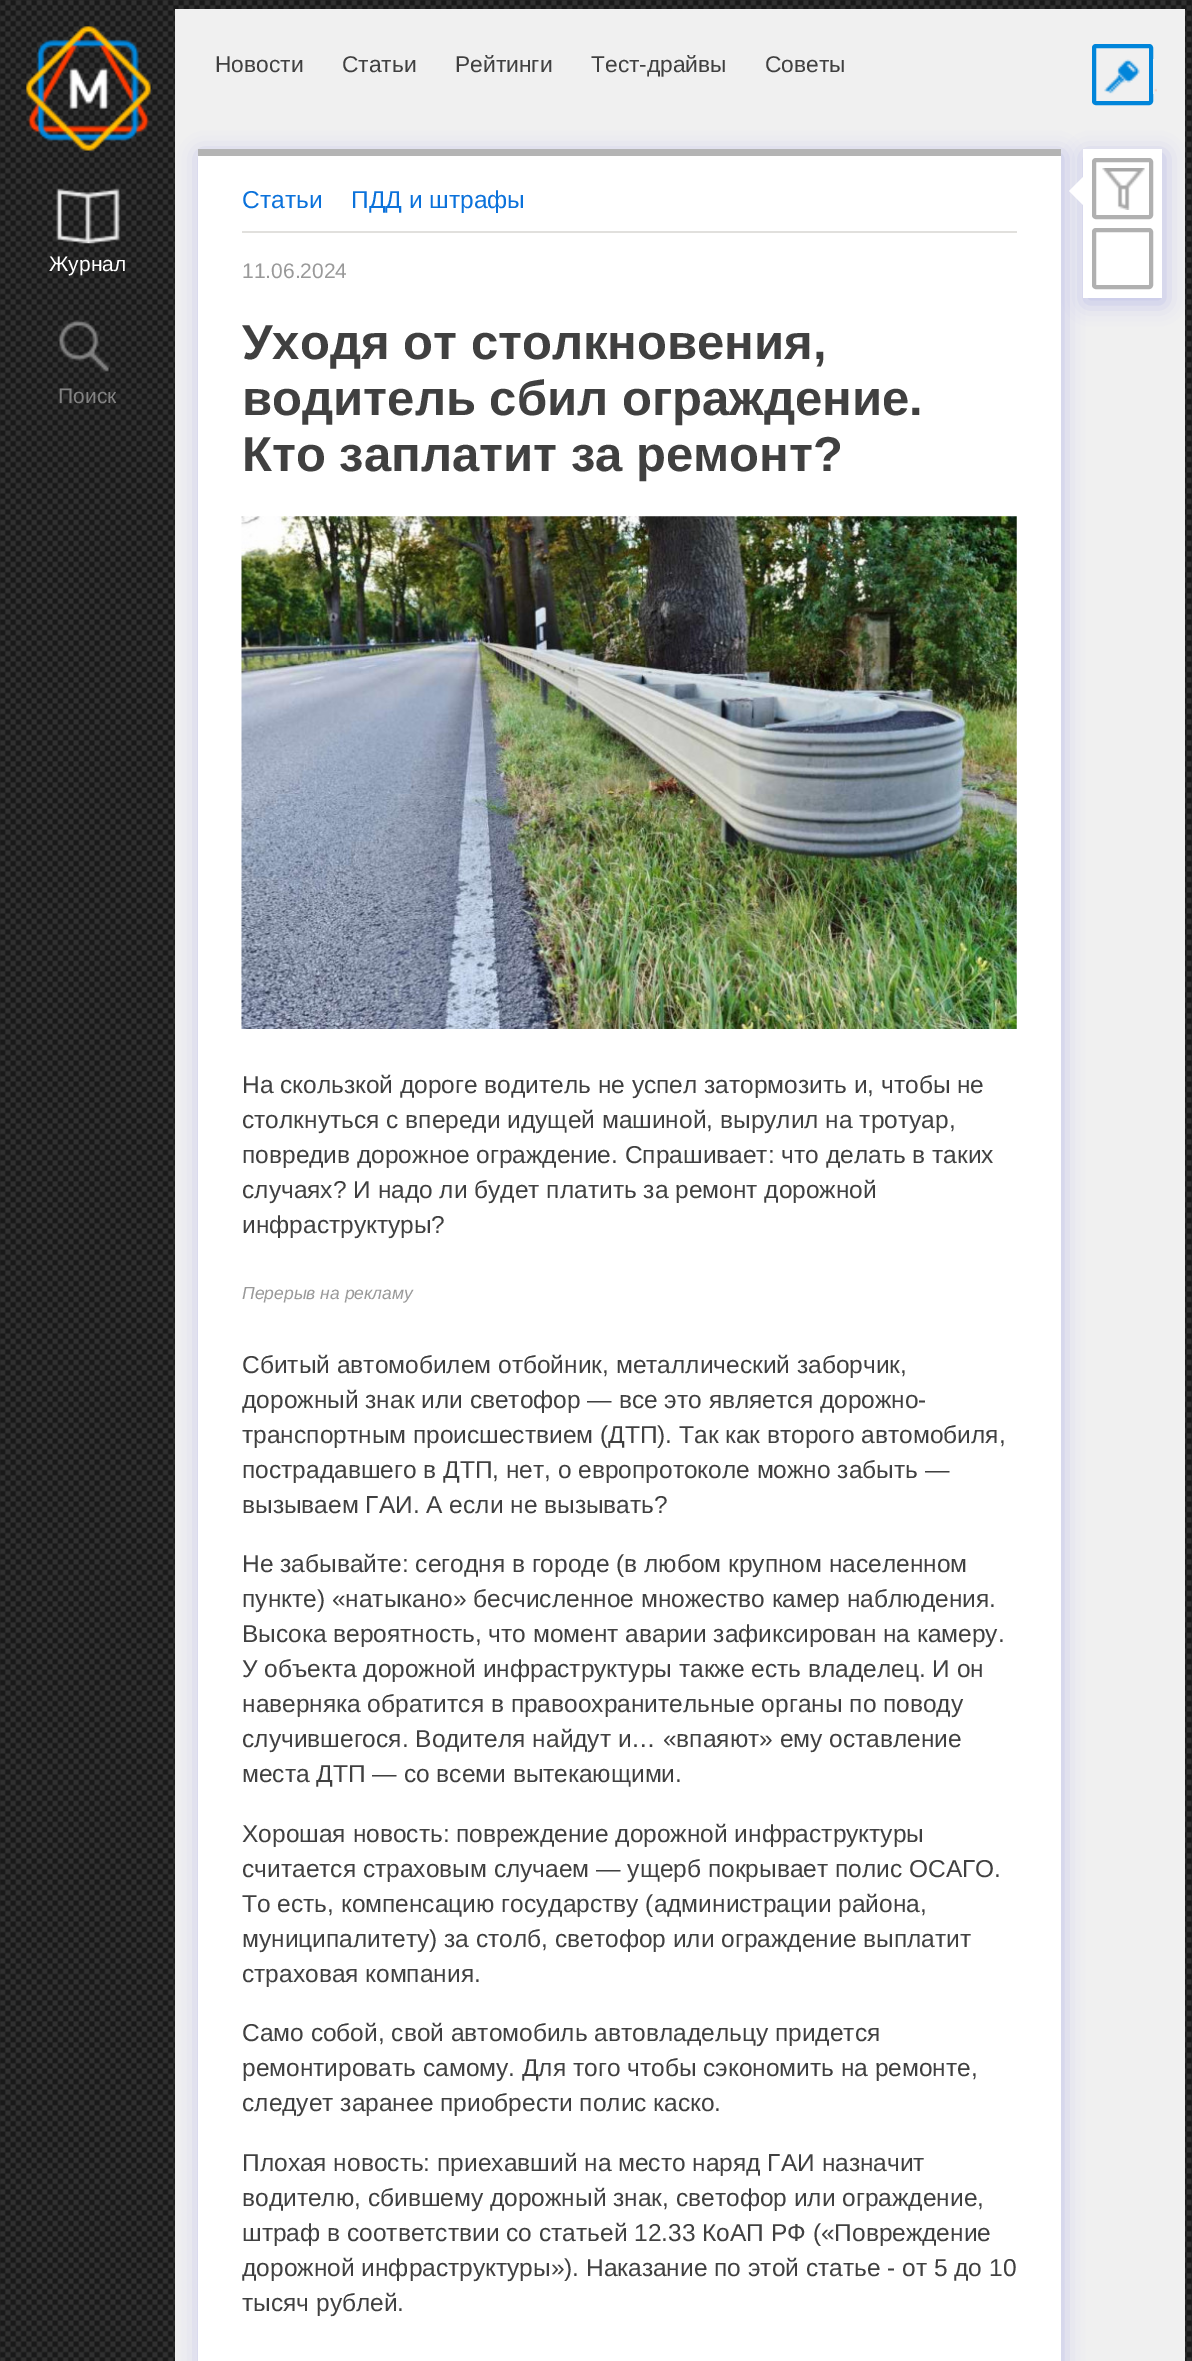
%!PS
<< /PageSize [1192 2361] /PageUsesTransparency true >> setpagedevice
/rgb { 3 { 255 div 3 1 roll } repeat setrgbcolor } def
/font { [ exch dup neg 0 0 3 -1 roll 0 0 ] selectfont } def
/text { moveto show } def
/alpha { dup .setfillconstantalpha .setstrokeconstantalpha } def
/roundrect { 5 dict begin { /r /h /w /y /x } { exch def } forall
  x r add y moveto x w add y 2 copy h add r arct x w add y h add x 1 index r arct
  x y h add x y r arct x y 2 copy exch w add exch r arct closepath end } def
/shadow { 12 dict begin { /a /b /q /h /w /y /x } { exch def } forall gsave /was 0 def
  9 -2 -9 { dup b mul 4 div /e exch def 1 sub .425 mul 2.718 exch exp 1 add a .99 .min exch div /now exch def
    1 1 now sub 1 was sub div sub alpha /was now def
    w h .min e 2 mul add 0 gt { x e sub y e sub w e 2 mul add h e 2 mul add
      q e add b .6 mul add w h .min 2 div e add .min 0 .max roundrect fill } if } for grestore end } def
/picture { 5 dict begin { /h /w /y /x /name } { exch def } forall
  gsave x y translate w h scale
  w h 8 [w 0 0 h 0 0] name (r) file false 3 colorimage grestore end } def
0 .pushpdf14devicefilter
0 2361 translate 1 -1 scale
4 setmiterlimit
255 255 255 rgb
0 0 1192 2361 rectfill
(img_01.rgb) 0 0 1192 2361 picture
(img_02.rgb) 26 26 125 125 picture
(img_03.rgb) 56 188 64 56 picture
(img_04.rgb) 59 320 50 52 picture
240 240 240 rgb
175 9 1010 2352 rectfill
0 133 218 rgb
4 setlinewidth
1094 46 57 57 2 roundrect stroke
(img_05.rgb) 1104 59 53 35 picture
0 9 200 rgb
200 154 862 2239 0 10.5 0.2 shadow
255 255 255 rgb
198 156 863 2205 rectfill
180 180 180 rgb
198 149 863 7 rectfill
225 224 221 rgb
242 231 775 2 rectfill
(img_06.rgb) 241 516 776 513 picture
0 9 200 rgb
1085 154 79 149 0 10.5 0.2 shadow
255 255 255 rgb
1083 149 79 149 rectfill
1083 177 moveto 0 28 rlineto -14 -14 rlineto closepath fill
176 176 176 rgb
1094 160 57 57 2 roundrect stroke
(img_07.rgb) 1102 168 43 42 picture
1094 230 57 57 2 roundrect stroke
/LiberationSans-Regular 21 font
255 255 255 rgb
(Журнал) 49 271 text
130 130 130 rgb
(Поиск) 58 403 text
/LiberationSans-Regular 22.75 font
64 64 64 rgb
(Новости) 215 72 text
(Статьи) 342 72 text
(Рейтинги) 455 72 text
(Тест-драйвы) 591 72 text
(Советы) 765 72 text
/LiberationSans-Regular 24.5 font
11 114 219 rgb
(Статьи) 242 208 text
(ПДД и штрафы) 351 208 text
/LiberationSans-Regular 21 font
153 153 153 rgb
(11.06.2024) 242 278 text
/LiberationSans-Bold 49 font
64 64 64 rgb
(Уходя от столкновения,) 242 359 text
(водитель сбил ограждение.) 242 415 text
(Кто заплатит за ремонт?) 242 471 text
/LiberationSans-Regular 24.5 font
(На скользкой дороге водитель не успел затормозить и, чтобы не) 242 1093 text
(столкнуться с впереди идущей машиной, вырулил на тротуар,) 242 1128 text
(повредив дорожное ограждение. Спрашивает: что делать в таких) 242 1163 text
(случаях? И надо ли будет платить за ремонт дорожной) 242 1198 text
(инфраструктуры?) 242 1233 text
/LiberationSans-Italic 17.5 font
153 153 153 rgb
(Перерыв на рекламу) 242 1299 text
/LiberationSans-Regular 24.5 font
64 64 64 rgb
(Сбитый автомобилем отбойник, металлический заборчик,) 242 1373 text
(дорожный знак или светофор — все это является дорожно-) 242 1408 text
(транспортным происшествием \(ДТП\). Так как второго автомобиля,) 242 1443 text
(пострадавшего в ДТП, нет, о европротоколе можно забыть —) 242 1478 text
(вызываем ГАИ. А если не вызывать?) 242 1513 text
(Не забывайте: сегодня в городе \(в любом крупном населенном) 242 1572 text
(пункте\) «натыкано» бесчисленное множество камер наблюдения.) 242 1607 text
(Высока вероятность, что момент аварии зафиксирован на камеру.) 242 1642 text
(У объекта дорожной инфраструктуры также есть владелец. И он) 242 1677 text
(наверняка обратится в правоохранительные органы по поводу) 242 1712 text
(случившегося. Водителя найдут и… «впаяют» ему оставление) 242 1747 text
(места ДТП — со всеми вытекающими.) 242 1782 text
(Хорошая новость: повреждение дорожной инфраструктуры) 242 1842 text
(считается страховым случаем — ущерб покрывает полис ОСАГО.) 242 1877 text
(То есть, компенсацию государству \(администрации района,) 242 1912 text
(муниципалитету\) за столб, светофор или ограждение выплатит) 242 1947 text
(страховая компания.) 242 1982 text
(Само собой, свой автомобиль автовладельцу придется) 242 2041 text
(ремонтировать самому. Для того чтобы сэкономить на ремонте,) 242 2076 text
(следует заранее приобрести полис каско.) 242 2111 text
(Плохая новость: приехавший на место наряд ГАИ назначит) 242 2171 text
(водителю, сбившему дорожный знак, светофор или ограждение,) 242 2206 text
(штраф в соответствии со статьей 12.33 КоАП РФ \(«Повреждение) 242 2241 text
(дорожной инфраструктуры»\). Наказание по этой статье - от 5 до 10) 242 2276 text
(тысяч рублей.) 242 2311 text
.poppdf14devicefilter showpage
